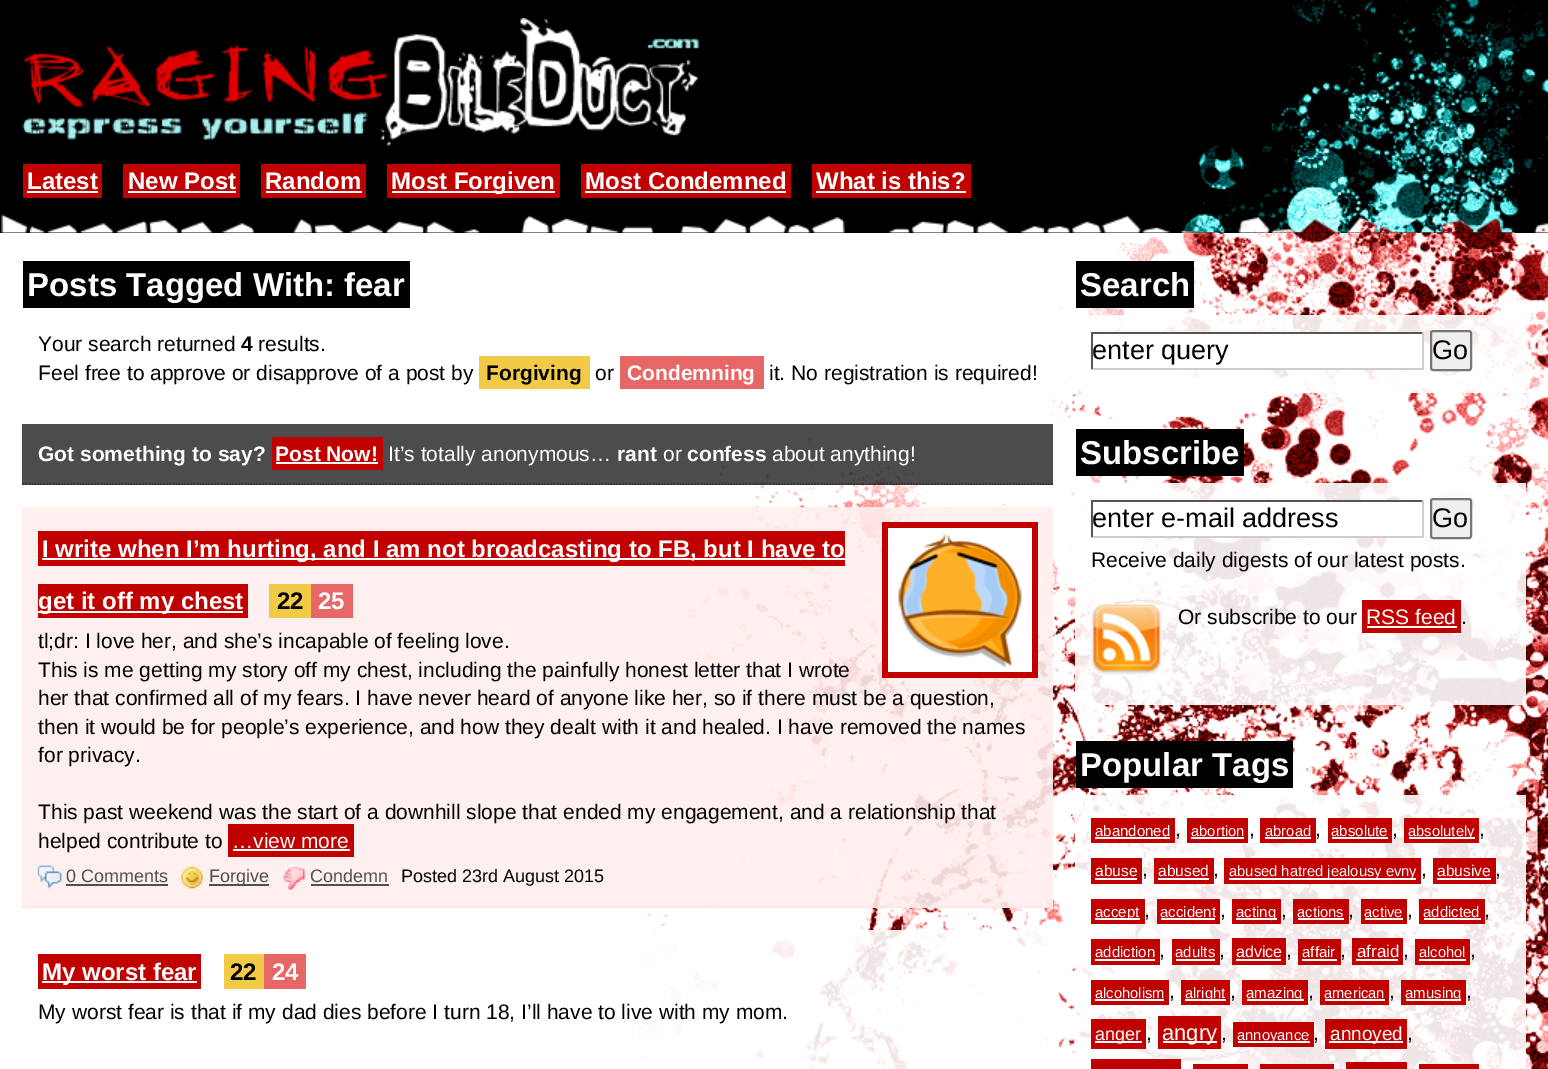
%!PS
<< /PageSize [1548 1069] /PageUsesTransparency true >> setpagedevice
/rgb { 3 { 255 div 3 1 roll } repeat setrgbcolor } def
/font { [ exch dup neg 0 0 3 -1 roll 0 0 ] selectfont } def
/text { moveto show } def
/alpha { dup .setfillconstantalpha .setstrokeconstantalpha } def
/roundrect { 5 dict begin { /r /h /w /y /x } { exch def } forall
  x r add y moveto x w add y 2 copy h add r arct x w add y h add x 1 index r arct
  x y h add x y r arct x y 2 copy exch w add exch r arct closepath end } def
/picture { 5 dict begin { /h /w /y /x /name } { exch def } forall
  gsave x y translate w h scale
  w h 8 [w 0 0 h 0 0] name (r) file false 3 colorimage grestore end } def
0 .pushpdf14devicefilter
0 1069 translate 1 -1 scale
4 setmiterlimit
0 0 0 rgb
0 0 1548 1069 rectfill
(img_01.rgb) 1181 0 367 233 picture
(img_02.rgb) 1 214 1170 19 picture
(img_03.rgb) 22 18 677 128 picture
193 0 0 rgb
23 164 79 34 rectfill
255 255 255 rgb
27 191 71 2 rectfill
193 0 0 rgb
123 164 117 34 rectfill
255 255 255 rgb
128 191 108 2 rectfill
193 0 0 rgb
261 164 105 34 rectfill
255 255 255 rgb
266 191 96 2 rectfill
193 0 0 rgb
387 164 173 34 rectfill
255 255 255 rgb
392 191 163 2 rectfill
193 0 0 rgb
581 164 210 34 rectfill
255 255 255 rgb
585 191 201 2 rectfill
193 0 0 rgb
812 164 159 34 rectfill
255 255 255 rgb
816 191 150 2 rectfill
0 233 1548 836 rectfill
(img_04.rgb) 607 232 941 837 picture
0 0 0 rgb
23 261 387 47 rectfill
0.9 alpha
255 255 255 rgb
1049 397 4 5 rectfill
1 alpha
241 203 69 rgb
479 356 111 33 rectfill
231 102 102 rgb
620 356 144 33 rectfill
0.7 alpha
0 0 0 rgb
22 424 1031 61 rectfill
1 alpha
44 44 44 rgb
1.5 setlinewidth
[1.5 1.5] 0 setdash
22.5 484 moveto 1030.5 0 rlineto stroke
193 0 0 rgb
272 437 111 33 rectfill
255 255 255 rgb
276 462 102 2 rectfill
0.9 alpha
255 238 238 rgb
22 507 1031 401 rectfill
1 alpha
255 221 221 rgb
22.5 907 moveto 1030.5 0 rlineto stroke
193 0 0 rgb
38 531 807 35 rectfill
255 255 255 rgb
42 558 803 2 rectfill
193 0 0 rgb
38 584 210 34 rectfill
255 255 255 rgb
38 611 205 2 rectfill
241 203 69 rgb
269 584 42 34 rectfill
231 102 102 rgb
311 584 42 34 rectfill
193 0 0 rgb
882 522 156 156 rectfill
255 255 255 rgb
888 528 144 144 rectfill
(img_05.rgb) 898 532 124 136 picture
193 0 0 rgb
228 824 126 33 rectfill
255 255 255 rgb
233 849 117 2 rectfill
(img_06.rgb) 37 865 25 24 picture
80 80 80 rgb
66 884 102 2 rectfill
(img_07.rgb) 181 866 22 23 picture
209 884 60 2 rectfill
(img_08.rgb) 283 865 22 25 picture
311 884 78 2 rectfill
0.9 alpha
255 255 255 rgb
607 930 444 139 rectfill
1 alpha
193 0 0 rgb
38 954 163 35 rectfill
255 255 255 rgb
42 981 155 2 rectfill
241 203 69 rgb
224 954 40 35 rectfill
231 102 102 rgb
264 954 42 35 rectfill
0 0 0 rgb
1076 261 118 47 rectfill
0.9 alpha
255 255 255 rgb
1078 315 448 78 rectfill
1 alpha
1102 334 320 34 rectfill
86 86 86 rgb
1091 332 333 2 rectfill
205 205 205 rgb
1422 332 2 37 rectfill
1091 368 333 2 rectfill
86 86 86 rgb
1091 332 2 37 rectfill
239 239 239 rgb
1431 331 40 39 2 roundrect gsave fill grestore
118 118 118 rgb
2 setlinewidth
[] 0 setdash
stroke
0 0 0 rgb
1076 429 168 47 rectfill
0.9 alpha
255 255 255 rgb
1075 483 451 222 rectfill
1 alpha
1093 502 329 34 rectfill
86 86 86 rgb
1091 500 333 2 rectfill
205 205 205 rgb
1422 500 2 37 rectfill
1091 536 333 2 rectfill
86 86 86 rgb
1091 500 2 37 rectfill
239 239 239 rgb
1431 499 40 39 2 roundrect gsave fill grestore
118 118 118 rgb
stroke
(img_09.rgb) 1090 604 73 73 picture
193 0 0 rgb
1362 600 99 33 rectfill
255 255 255 rgb
1367 626 90 2 rectfill
0 0 0 rgb
1076 741 217 47 rectfill
0.9 alpha
255 255 255 rgb
1075 795 451 274 rectfill
1 alpha
193 0 0 rgb
1091 818 84 25 rectfill
255 255 255 rgb
1095 837 75 2 rectfill
193 0 0 rgb
1187 818 61 25 rectfill
255 255 255 rgb
1191 837 53 2 rectfill
193 0 0 rgb
1260 818 56 25 rectfill
255 255 255 rgb
1265 837 46 2 rectfill
193 0 0 rgb
1328 818 64 25 rectfill
255 255 255 rgb
1332 837 56 2 rectfill
193 0 0 rgb
1404 818 75 25 rectfill
255 255 255 rgb
1409 837 66 2 rectfill
193 0 0 rgb
1091 858 51 26 rectfill
255 255 255 rgb
1095 878 42 2 rectfill
193 0 0 rgb
1154 858 60 26 rectfill
255 255 255 rgb
1158 878 51 2 rectfill
193 0 0 rgb
1224 858 197 26 rectfill
255 255 255 rgb
1229 878 187 2 rectfill
193 0 0 rgb
1433 858 63 26 rectfill
255 255 255 rgb
1437 878 54 2 rectfill
193 0 0 rgb
1091 899 54 25 rectfill
255 255 255 rgb
1095 918 45 2 rectfill
193 0 0 rgb
1157 899 63 25 rectfill
255 255 255 rgb
1161 918 54 2 rectfill
193 0 0 rgb
1232 899 49 25 rectfill
255 255 255 rgb
1236 918 41 2 rectfill
193 0 0 rgb
1293 899 56 25 rectfill
255 255 255 rgb
1298 918 46 2 rectfill
193 0 0 rgb
1361 899 46 25 rectfill
255 255 255 rgb
1365 918 38 2 rectfill
193 0 0 rgb
1419 899 66 25 rectfill
255 255 255 rgb
1424 918 57 2 rectfill
193 0 0 rgb
1091 939 69 26 rectfill
255 255 255 rgb
1095 959 60 2 rectfill
193 0 0 rgb
1172 939 48 26 rectfill
255 255 255 rgb
1176 959 39 2 rectfill
193 0 0 rgb
1232 938 54 27 rectfill
255 255 255 rgb
1236 959 45 2 rectfill
193 0 0 rgb
1298 939 43 26 rectfill
255 255 255 rgb
1302 959 35 2 rectfill
193 0 0 rgb
1352 938 51 27 rectfill
255 255 255 rgb
1356 959 42 2 rectfill
193 0 0 rgb
1415 939 55 26 rectfill
255 255 255 rgb
1419 959 47 2 rectfill
193 0 0 rgb
1091 980 78 25 rectfill
255 255 255 rgb
1095 999 69 2 rectfill
193 0 0 rgb
1181 980 49 25 rectfill
255 255 255 rgb
1185 999 41 2 rectfill
193 0 0 rgb
1242 980 66 25 rectfill
255 255 255 rgb
1247 999 57 2 rectfill
193 0 0 rgb
1320 980 69 25 rectfill
255 255 255 rgb
1325 999 60 2 rectfill
193 0 0 rgb
1401 980 65 25 rectfill
255 255 255 rgb
1406 999 55 2 rectfill
193 0 0 rgb
1091 1019 55 30 rectfill
255 255 255 rgb
1095 1041 47 2 rectfill
193 0 0 rgb
1158 1016 63 33 rectfill
255 255 255 rgb
1163 1041 54 2 rectfill
193 0 0 rgb
1233 1022 81 25 rectfill
255 255 255 rgb
1238 1041 72 2 rectfill
193 0 0 rgb
1325 1019 82 30 rectfill
255 255 255 rgb
1329 1041 74 2 rectfill
193 0 0 rgb
1091 1059 90 10 rectfill
1193 1064 55 5 rectfill
1260 1064 74 5 rectfill
1346 1062 61 7 rectfill
1419 1064 60 5 rectfill
/LiberationSans-Bold 24 font
255 255 255 rgb
(Latest) 27 189 text
(New Post) 128 189 text
(Random) 265 189 text
(Most Forgiven) 391 189 text
(Most Condemned) 585 189 text
(What is this?) 816 189 text
/LiberationSans-Bold 33 font
(Posts Tagged With: fear) 27 296 text
/LiberationSans-Regular 21 font
0 0 0 rgb
(Your search returned) 38 351 text
/LiberationSans-Bold 21 font
(4) 241 351 text
/LiberationSans-Regular 21 font
(results.) 258 351 text
(Feel free to approve or disapprove of a post by) 38 380 text
/LiberationSans-Bold 21 font
(Forgiving) 486 380 text
/LiberationSans-Regular 21 font
(or) 595 380 text
/LiberationSans-Bold 21 font
255 255 255 rgb
(Condemning) 627 380 text
/LiberationSans-Regular 21 font
0 0 0 rgb
(it. No registration is required!) 769 380 text
/LiberationSans-Bold 21 font
255 255 255 rgb
(Got something to say?) 38 461 text
(Post Now!) 275 461 text
/LiberationSans-Regular 21 font
(It’s totally anonymous…) 388 461 text
/LiberationSans-Bold 21 font
(rant) 617 461 text
/LiberationSans-Regular 21 font
(or) 663 461 text
/LiberationSans-Bold 21 font
(confess) 687 461 text
/LiberationSans-Regular 21 font
(about anything!) 772 461 text
/LiberationSans-Bold 24 font
(I write when I’m hurting, and I am not broadcasting to FB, but I have to) 42 557 text
(get it off my chest) 38 609 text
0 0 0 rgb
(22) 277 609 text
255 255 255 rgb
(25) 318 609 text
/LiberationSans-Regular 21 font
0 0 0 rgb
(tl;dr: I love her, and she’s incapable of feeling love.) 38 648 text
(This is me getting my story off my chest, including the painfully honest letter that I wrote) 38 677 text
(her that confirmed all of my fears. I have never heard of anyone like her, so if there must be a question,) 38 705 text
(then it would be for people’s experience, and how they dealt with it and healed. I have removed the names) 38 734 text
(for privacy.) 38 762 text
(This past weekend was the start of a downhill slope that ended my engagement, and a relationship that) 38 819 text
(helped contribute to) 38 848 text
255 255 255 rgb
(…view more) 232 848 text
/LiberationSans-Regular 18 font
80 80 80 rgb
(0 Comments) 66 882 text
(Forgive) 209 882 text
(Condemn) 310 882 text
0 0 0 rgb
(Posted 23rd August 2015) 401 882 text
/LiberationSans-Bold 24 font
255 255 255 rgb
(My worst fear) 42 980 text
0 0 0 rgb
(22) 230 980 text
255 255 255 rgb
(24) 272 980 text
/LiberationSans-Regular 21 font
0 0 0 rgb
(My worst fear is that if my dad dies before I turn 18, I’ll have to live with my mom.) 38 1019 text
/LiberationSans-Bold 33 font
255 255 255 rgb
(Search) 1080 296 text
/LiberationSans-Regular 27 font
0 0 0 rgb
(enter query) 1092 359 text
(Go) 1432 359 text
/LiberationSans-Bold 33 font
255 255 255 rgb
(Subscribe) 1080 464 text
/LiberationSans-Regular 27 font
0 0 0 rgb
(enter e-mail address) 1092 527 text
(Go) 1432 527 text
/LiberationSans-Regular 21 font
(Receive daily digests of our latest posts.) 1091 567 text
(Or subscribe to our) 1178 624 text
255 255 255 rgb
(RSS feed) 1366 624 text
0 0 0 rgb
(.) 1461 624 text
/LiberationSans-Bold 33 font
255 255 255 rgb
(Popular Tags) 1080 776 text
/LiberationSans-Regular 15 font
(abandoned) 1095 836 text
/LiberationSans-Regular 21 font
0 0 0 rgb
(,) 1175 836 text
/LiberationSans-Regular 14.75 font
255 255 255 rgb
(abortion) 1191 836 text
/LiberationSans-Regular 21 font
0 0 0 rgb
(,) 1249 836 text
/LiberationSans-Regular 14.75 font
255 255 255 rgb
(abroad) 1265 836 text
/LiberationSans-Regular 21 font
0 0 0 rgb
(,) 1315 836 text
/LiberationSans-Regular 15 font
255 255 255 rgb
(absolute) 1331 836 text
/LiberationSans-Regular 21 font
0 0 0 rgb
(,) 1392 836 text
/LiberationSans-Regular 14.75 font
255 255 255 rgb
(absolutely) 1408 836 text
/LiberationSans-Regular 21 font
0 0 0 rgb
(,) 1479 836 text
/LiberationSans-Regular 15.5 font
255 255 255 rgb
(abuse) 1095 876 text
/LiberationSans-Regular 21 font
0 0 0 rgb
(,) 1142 876 text
/LiberationSans-Regular 15.5 font
255 255 255 rgb
(abused) 1158 876 text
/LiberationSans-Regular 21 font
0 0 0 rgb
(,) 1213 876 text
/LiberationSans-Regular 14.75 font
255 255 255 rgb
(abused hatred jealousy evny) 1229 876 text
/LiberationSans-Regular 21 font
0 0 0 rgb
(,) 1421 876 text
/LiberationSans-Regular 15.5 font
255 255 255 rgb
(abusive) 1437 876 text
/LiberationSans-Regular 21 font
0 0 0 rgb
(,) 1495 876 text
/LiberationSans-Regular 15 font
255 255 255 rgb
(accept) 1095 917 text
/LiberationSans-Regular 21 font
0 0 0 rgb
(,) 1144 917 text
/LiberationSans-Regular 15 font
255 255 255 rgb
(accident) 1160 917 text
/LiberationSans-Regular 21 font
0 0 0 rgb
(,) 1220 917 text
/LiberationSans-Regular 15 font
255 255 255 rgb
(acting) 1236 917 text
/LiberationSans-Regular 21 font
0 0 0 rgb
(,) 1281 917 text
/LiberationSans-Regular 14.75 font
255 255 255 rgb
(actions) 1297 917 text
/LiberationSans-Regular 21 font
0 0 0 rgb
(,) 1348 917 text
/LiberationSans-Regular 14.75 font
255 255 255 rgb
(active) 1364 917 text
/LiberationSans-Regular 21 font
0 0 0 rgb
(,) 1407 917 text
/LiberationSans-Regular 15 font
255 255 255 rgb
(addicted) 1423 917 text
/LiberationSans-Regular 21 font
0 0 0 rgb
(,) 1484 917 text
/LiberationSans-Regular 15 font
255 255 255 rgb
(addiction) 1095 957 text
/LiberationSans-Regular 21 font
0 0 0 rgb
(,) 1159 957 text
/LiberationSans-Regular 15 font
255 255 255 rgb
(adults) 1175 957 text
/LiberationSans-Regular 21 font
0 0 0 rgb
(,) 1219 957 text
/LiberationSans-Regular 16 font
255 255 255 rgb
(advice) 1236 957 text
/LiberationSans-Regular 21 font
0 0 0 rgb
(,) 1286 957 text
/LiberationSans-Regular 15 font
255 255 255 rgb
(affair) 1302 957 text
/LiberationSans-Regular 21 font
0 0 0 rgb
(,) 1340 957 text
/LiberationSans-Regular 17 font
255 255 255 rgb
(afraid) 1357 957 text
/LiberationSans-Regular 21 font
0 0 0 rgb
(,) 1403 957 text
/LiberationSans-Regular 14.75 font
255 255 255 rgb
(alcohol) 1419 957 text
/LiberationSans-Regular 21 font
0 0 0 rgb
(,) 1470 957 text
/LiberationSans-Regular 14.75 font
255 255 255 rgb
(alcoholism) 1095 998 text
/LiberationSans-Regular 21 font
0 0 0 rgb
(,) 1169 998 text
/LiberationSans-Regular 14.75 font
255 255 255 rgb
(alright) 1185 998 text
/LiberationSans-Regular 21 font
0 0 0 rgb
(,) 1230 998 text
/LiberationSans-Regular 15 font
255 255 255 rgb
(amazing) 1246 998 text
/LiberationSans-Regular 21 font
0 0 0 rgb
(,) 1308 998 text
/LiberationSans-Regular 14.75 font
255 255 255 rgb
(american) 1324 998 text
/LiberationSans-Regular 21 font
0 0 0 rgb
(,) 1389 998 text
/LiberationSans-Regular 15 font
255 255 255 rgb
(amusing) 1405 998 text
/LiberationSans-Regular 21 font
0 0 0 rgb
(,) 1466 998 text
/LiberationSans-Regular 18 font
255 255 255 rgb
(anger) 1095 1040 text
/LiberationSans-Regular 21 font
0 0 0 rgb
(,) 1146 1040 text
/LiberationSans-Regular 22 font
255 255 255 rgb
(angry) 1162 1040 text
/LiberationSans-Regular 21 font
0 0 0 rgb
(,) 1221 1040 text
/LiberationSans-Regular 14.75 font
255 255 255 rgb
(annoyance) 1237 1040 text
/LiberationSans-Regular 21 font
0 0 0 rgb
(,) 1313 1040 text
/LiberationSans-Regular 19 font
255 255 255 rgb
(annoyed) 1330 1040 text
/LiberationSans-Regular 21 font
0 0 0 rgb
(,) 1407 1040 text
.poppdf14devicefilter showpage
